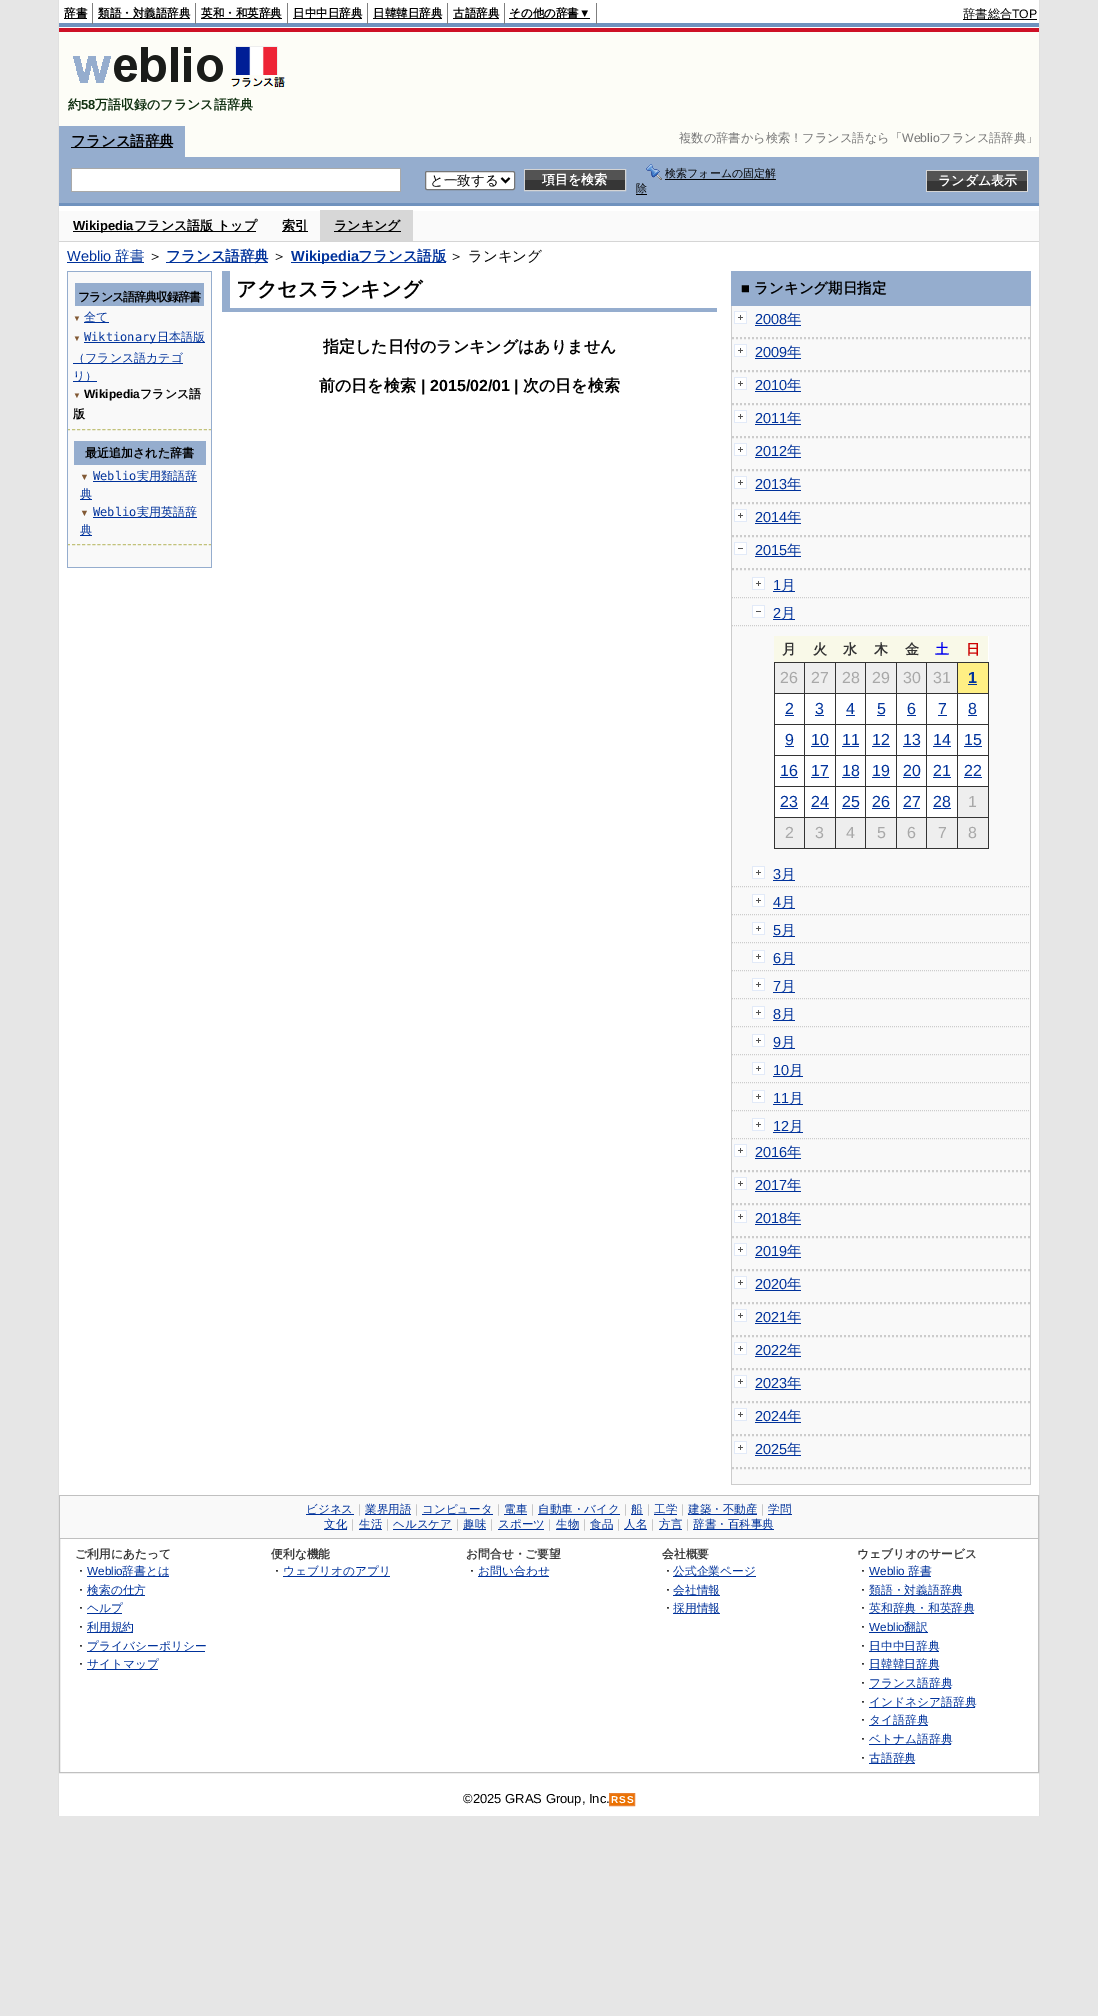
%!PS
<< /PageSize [1098 2016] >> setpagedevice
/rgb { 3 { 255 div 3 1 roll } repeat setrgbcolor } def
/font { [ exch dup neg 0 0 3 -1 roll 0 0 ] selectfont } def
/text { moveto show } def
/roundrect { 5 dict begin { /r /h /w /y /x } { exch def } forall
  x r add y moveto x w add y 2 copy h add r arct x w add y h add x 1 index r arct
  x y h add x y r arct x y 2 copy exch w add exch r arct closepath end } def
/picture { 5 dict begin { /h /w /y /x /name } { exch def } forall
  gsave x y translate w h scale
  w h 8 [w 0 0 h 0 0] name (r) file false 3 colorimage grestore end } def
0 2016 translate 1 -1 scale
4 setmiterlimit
230 230 230 rgb
0 0 1098 2016 rectfill
255 255 255 rgb
59 0 980 1816 rectfill
224 224 224 rgb
1039 0 1 1816 rectfill
58 0 1 1816 rectfill
112 146 190 rgb
59 23 980 4 rectfill
127 127 127 rgb
92 3 1 21 rectfill
0 0 0 rgb
64 18 23 1 rectfill
127 127 127 rgb
195 3 1 21 rectfill
0 0 0 rgb
98 18 92 1 rectfill
127 127 127 rgb
287 3 1 21 rectfill
0 0 0 rgb
201 18 81 1 rectfill
127 127 127 rgb
367 3 1 21 rectfill
0 0 0 rgb
293 18 69 1 rectfill
127 127 127 rgb
447 3 1 21 rectfill
0 0 0 rgb
373 18 69 1 rectfill
127 127 127 rgb
504 3 1 21 rectfill
0 0 0 rgb
453 18 46 1 rectfill
127 127 127 rgb
596 3 1 21 rectfill
0 0 0 rgb
509 18 81 1 rectfill
963 19 74 1 rectfill
253 253 247 rgb
59 32 980 94 rectfill
206 17 38 rgb
59 28 980 4 rectfill
(img_01.rgb) 73 46 212 42 picture
253 253 247 rgb
185 126 854 31 rectfill
149 173 206 rgb
59 126 126 31 rectfill
0 0 0 rgb
71 147 102 1 rectfill
149 173 206 rgb
59 157 980 46 rectfill
112 146 190 rgb
59 203 980 3 rectfill
255 255 255 rgb
72 169 328 22 rectfill
169 169 169 rgb
71 168 330 1 rectfill
400 168 1 24 rectfill
71 191 330 1 rectfill
71 168 1 24 rectfill
255 255 255 rgb
425.5 171.5 89 18 1.5 roundrect gsave fill grestore
118 118 118 rgb
stroke
0 0 0 rgb
2 setlinewidth
501.5 178 moveto 4 4 rlineto 4 -4 rlineto stroke
212 212 212 rgb
1 setlinewidth
524.5 169.5 101 21 rectstroke
83 83 83 rgb
525 170 100 10 rectfill
54 54 54 rgb
525 180 100 10 rectfill
(img_02.rgb) 646 164 16 16 picture
0 0 0 rgb
665 179 111 1 rectfill
636 194 11 1 rectfill
212 212 212 rgb
926 170 102 1 rectfill
228 228 228 rgb
1027 170 1 22 rectfill
212 212 212 rgb
926 191 102 1 rectfill
926 170 1 22 rectfill
83 83 83 rgb
927 171 100 10 rectfill
54 54 54 rgb
927 181 100 10 rectfill
250 250 250 rgb
59 211 980 30 rectfill
213 213 213 rgb
59 241 980 1 rectfill
0 0 0 rgb
73 231 183 1 rectfill
282 231 26 1 rectfill
215 215 215 rgb
320 210 93 31 rectfill
0 0 0 rgb
334 231 67 1 rectfill
0 50 155 rgb
67 262 77 1 rectfill
166 262 102 1 rectfill
291 262 155 1 rectfill
249 249 249 rgb
68 272 143 295 rectfill
149 173 206 rgb
67 271 145 1 rectfill
211 271 1 158 rectfill
67 271 1 158 rectfill
75 283 129 23 rectfill
0 50 155 rgb
84 322 25 1 rectfill
84 342 121 1 rectfill
73 363 110 1 rectfill
73 381 24 1 rectfill
194 194 122 rgb
[3 2.07] 0 setdash
67 429.5 moveto 145 0 rlineto stroke
149 173 206 rgb
211 429 1 115 rectfill
67 429 1 115 rectfill
74 441 132 24 rectfill
0 50 155 rgb
93 481 104 1 rectfill
80 499 12 1 rectfill
93 517 104 1 rectfill
80 535 12 1 rectfill
194 194 122 rgb
67 544.5 moveto 145 0 rlineto stroke
149 173 206 rgb
211 544 1 24 rectfill
67 544 1 12 rectfill
67 567 145 1 rectfill
67 556 1 12 rectfill
222 308 495 4 rectfill
222 271 8 37 rectfill
731 271 300 35 rectfill
249 249 249 rgb
732 306 298 1178 rectfill
204 204 204 rgb
1030 306 1 1179 rectfill
731 1484 300 1 rectfill
731 306 1 1179 rectfill
2 setlinewidth
[2 2] 0 setdash
732 338 moveto 298 0 rlineto stroke
(img_03.rgb) 734 311 13 13 picture
0 50 155 rgb
755 325 46 1 rectfill
204 204 204 rgb
732 371 moveto 298 0 rlineto stroke
(img_03.rgb) 734 344 13 13 picture
0 50 155 rgb
755 358 46 1 rectfill
204 204 204 rgb
732 404 moveto 298 0 rlineto stroke
(img_03.rgb) 734 377 13 13 picture
0 50 155 rgb
755 391 46 1 rectfill
204 204 204 rgb
732 437 moveto 298 0 rlineto stroke
(img_03.rgb) 734 410 13 13 picture
0 50 155 rgb
755 424 46 1 rectfill
204 204 204 rgb
732 470 moveto 298 0 rlineto stroke
(img_03.rgb) 734 443 13 13 picture
0 50 155 rgb
755 457 46 1 rectfill
204 204 204 rgb
732 503 moveto 298 0 rlineto stroke
(img_03.rgb) 734 476 13 13 picture
0 50 155 rgb
755 490 46 1 rectfill
204 204 204 rgb
732 536 moveto 298 0 rlineto stroke
(img_03.rgb) 734 509 13 13 picture
0 50 155 rgb
755 523 46 1 rectfill
204 204 204 rgb
732 569 moveto 298 0 rlineto stroke
(img_04.rgb) 734 542 13 13 picture
0 50 155 rgb
755 556 46 1 rectfill
204 204 204 rgb
1 setlinewidth
[1 1] 0 setdash
732 597.5 moveto 298 0 rlineto stroke
(img_03.rgb) 752 577 13 13 picture
0 50 155 rgb
773 591 22 1 rectfill
204 204 204 rgb
732 625.5 moveto 298 0 rlineto stroke
(img_04.rgb) 752 605 13 13 picture
0 50 155 rgb
773 619 22 1 rectfill
255 255 255 rgb
775 636 214 181 rectfill
249 249 232 rgb
774 636 214 26 rectfill
238 238 238 rgb
775 663 29 30 rectfill
51 51 51 rgb
957 662 32 1 rectfill
957 693 32 1 rectfill
957 724 32 1 rectfill
957 755 32 1 rectfill
957 786 32 1 rectfill
957 817 32 1 rectfill
988 817 1 32 rectfill
957 848 32 1 rectfill
957 817 1 32 rectfill
926 817 32 1 rectfill
957 786 1 32 rectfill
926 786 32 1 rectfill
957 755 1 32 rectfill
926 755 32 1 rectfill
957 724 1 32 rectfill
926 724 32 1 rectfill
957 693 1 32 rectfill
926 693 32 1 rectfill
957 662 1 32 rectfill
926 662 32 1 rectfill
926 848 32 1 rectfill
926 817 1 32 rectfill
896 817 31 1 rectfill
926 786 1 32 rectfill
896 786 31 1 rectfill
926 755 1 32 rectfill
896 755 31 1 rectfill
926 724 1 32 rectfill
896 724 31 1 rectfill
926 693 1 32 rectfill
896 693 31 1 rectfill
926 662 1 32 rectfill
896 662 31 1 rectfill
896 848 31 1 rectfill
896 817 1 32 rectfill
865 817 32 1 rectfill
896 786 1 32 rectfill
865 786 32 1 rectfill
896 755 1 32 rectfill
865 755 32 1 rectfill
896 724 1 32 rectfill
865 724 32 1 rectfill
896 693 1 32 rectfill
865 693 32 1 rectfill
896 662 1 32 rectfill
865 662 32 1 rectfill
865 848 32 1 rectfill
865 817 1 32 rectfill
835 817 31 1 rectfill
865 786 1 32 rectfill
835 786 31 1 rectfill
865 755 1 32 rectfill
835 755 31 1 rectfill
865 724 1 32 rectfill
835 724 31 1 rectfill
865 693 1 32 rectfill
835 693 31 1 rectfill
865 662 1 32 rectfill
835 662 31 1 rectfill
835 848 31 1 rectfill
835 817 1 32 rectfill
804 817 32 1 rectfill
835 786 1 32 rectfill
804 786 32 1 rectfill
835 755 1 32 rectfill
804 755 32 1 rectfill
835 724 1 32 rectfill
804 724 32 1 rectfill
835 693 1 32 rectfill
804 693 32 1 rectfill
835 662 1 32 rectfill
804 662 32 1 rectfill
804 848 32 1 rectfill
804 817 1 32 rectfill
774 817 31 1 rectfill
804 786 1 32 rectfill
774 786 31 1 rectfill
804 755 1 32 rectfill
774 755 31 1 rectfill
804 724 1 32 rectfill
774 724 31 1 rectfill
804 693 1 32 rectfill
774 693 31 1 rectfill
804 662 1 32 rectfill
774 662 31 1 rectfill
774 848 31 1 rectfill
774 817 1 32 rectfill
774 786 1 32 rectfill
774 755 1 32 rectfill
774 724 1 32 rectfill
774 693 1 32 rectfill
774 662 1 32 rectfill
238 238 238 rgb
805 663 30 30 rectfill
836 663 29 30 rectfill
866 663 30 30 rectfill
897 663 29 30 rectfill
927 663 30 30 rectfill
255 239 132 rgb
958 663 30 30 rectfill
51 51 51 rgb
988 786 1 32 rectfill
988 755 1 32 rectfill
988 724 1 32 rectfill
988 693 1 32 rectfill
988 662 1 32 rectfill
0 50 155 rgb
968 684 9 1 rectfill
785 715 9 1 rectfill
815 715 9 1 rectfill
846 715 9 1 rectfill
877 715 8 1 rectfill
907 715 9 1 rectfill
938 715 9 1 rectfill
968 715 9 1 rectfill
785 746 9 1 rectfill
811 746 18 1 rectfill
842 746 17 1 rectfill
872 746 18 1 rectfill
903 746 17 1 rectfill
933 746 18 1 rectfill
964 746 18 1 rectfill
780 777 18 1 rectfill
811 777 18 1 rectfill
842 777 17 1 rectfill
872 777 18 1 rectfill
903 777 17 1 rectfill
933 777 18 1 rectfill
964 777 18 1 rectfill
780 808 18 1 rectfill
811 808 18 1 rectfill
842 808 17 1 rectfill
872 808 18 1 rectfill
903 808 17 1 rectfill
933 808 18 1 rectfill
238 238 238 rgb
958 787 30 30 rectfill
775 818 29 30 rectfill
805 818 30 30 rectfill
836 818 29 30 rectfill
866 818 30 30 rectfill
897 818 29 30 rectfill
927 818 30 30 rectfill
958 818 30 30 rectfill
204 204 204 rgb
732 886.5 moveto 298 0 rlineto stroke
(img_03.rgb) 752 866 13 13 picture
0 50 155 rgb
773 880 22 1 rectfill
204 204 204 rgb
732 914.5 moveto 298 0 rlineto stroke
(img_03.rgb) 752 894 13 13 picture
0 50 155 rgb
773 908 22 1 rectfill
204 204 204 rgb
732 942.5 moveto 298 0 rlineto stroke
(img_03.rgb) 752 922 13 13 picture
0 50 155 rgb
773 936 22 1 rectfill
204 204 204 rgb
732 970.5 moveto 298 0 rlineto stroke
(img_03.rgb) 752 950 13 13 picture
0 50 155 rgb
773 964 22 1 rectfill
204 204 204 rgb
732 998.5 moveto 298 0 rlineto stroke
(img_03.rgb) 752 978 13 13 picture
0 50 155 rgb
773 992 22 1 rectfill
204 204 204 rgb
732 1026.5 moveto 298 0 rlineto stroke
(img_03.rgb) 752 1006 13 13 picture
0 50 155 rgb
773 1020 22 1 rectfill
204 204 204 rgb
732 1054.5 moveto 298 0 rlineto stroke
(img_03.rgb) 752 1034 13 13 picture
0 50 155 rgb
773 1048 22 1 rectfill
204 204 204 rgb
732 1082.5 moveto 298 0 rlineto stroke
(img_03.rgb) 752 1062 13 13 picture
0 50 155 rgb
773 1076 30 1 rectfill
204 204 204 rgb
732 1110.5 moveto 298 0 rlineto stroke
(img_03.rgb) 752 1090 13 13 picture
0 50 155 rgb
773 1104 30 1 rectfill
204 204 204 rgb
732 1138.5 moveto 298 0 rlineto stroke
(img_03.rgb) 752 1118 13 13 picture
0 50 155 rgb
773 1132 30 1 rectfill
204 204 204 rgb
2 setlinewidth
[2 2] 0 setdash
732 1171 moveto 298 0 rlineto stroke
(img_03.rgb) 734 1144 13 13 picture
0 50 155 rgb
755 1158 46 1 rectfill
204 204 204 rgb
732 1204 moveto 298 0 rlineto stroke
(img_03.rgb) 734 1177 13 13 picture
0 50 155 rgb
755 1191 46 1 rectfill
204 204 204 rgb
732 1237 moveto 298 0 rlineto stroke
(img_03.rgb) 734 1210 13 13 picture
0 50 155 rgb
755 1224 46 1 rectfill
204 204 204 rgb
732 1270 moveto 298 0 rlineto stroke
(img_03.rgb) 734 1243 13 13 picture
0 50 155 rgb
755 1257 46 1 rectfill
204 204 204 rgb
732 1303 moveto 298 0 rlineto stroke
(img_03.rgb) 734 1276 13 13 picture
0 50 155 rgb
755 1290 46 1 rectfill
204 204 204 rgb
732 1336 moveto 298 0 rlineto stroke
(img_03.rgb) 734 1309 13 13 picture
0 50 155 rgb
755 1323 46 1 rectfill
204 204 204 rgb
732 1369 moveto 298 0 rlineto stroke
(img_03.rgb) 734 1342 13 13 picture
0 50 155 rgb
755 1356 46 1 rectfill
204 204 204 rgb
732 1402 moveto 298 0 rlineto stroke
(img_03.rgb) 734 1375 13 13 picture
0 50 155 rgb
755 1389 46 1 rectfill
204 204 204 rgb
732 1435 moveto 298 0 rlineto stroke
(img_03.rgb) 734 1408 13 13 picture
0 50 155 rgb
755 1422 46 1 rectfill
204 204 204 rgb
732 1468 moveto 298 0 rlineto stroke
(img_03.rgb) 734 1441 13 13 picture
0 50 155 rgb
755 1455 46 1 rectfill
192 192 192 rgb
1 setlinewidth
[] 0 setdash
59.5 1495.5 979 277 rectstroke
249 249 249 rgb
60 1496 978 42 rectfill
192 192 192 rgb
60 1538 978 1 rectfill
0 50 155 rgb
306 1514 48 1 rectfill
365 1514 46 1 rectfill
422 1514 71 1 rectfill
504 1514 23 1 rectfill
538 1514 82 1 rectfill
631 1514 12 1 rectfill
654 1514 23 1 rectfill
688 1514 69 1 rectfill
768 1514 24 1 rectfill
324 1529 23 1 rectfill
359 1529 23 1 rectfill
393 1529 59 1 rectfill
463 1529 23 1 rectfill
498 1529 46 1 rectfill
556 1529 23 1 rectfill
590 1529 23 1 rectfill
624 1529 23 1 rectfill
659 1529 23 1 rectfill
693 1529 81 1 rectfill
87 1576 82 1 rectfill
87 1595 58 1 rectfill
87 1613 35 1 rectfill
87 1632 46 1 rectfill
87 1651 118 1 rectfill
87 1669 71 1 rectfill
283 1576 107 1 rectfill
478 1576 71 1 rectfill
673 1576 83 1 rectfill
673 1595 47 1 rectfill
673 1613 47 1 rectfill
869 1576 62 1 rectfill
869 1595 93 1 rectfill
869 1613 105 1 rectfill
869 1632 59 1 rectfill
869 1651 70 1 rectfill
869 1669 70 1 rectfill
869 1688 82 1 rectfill
869 1707 106 1 rectfill
869 1725 59 1 rectfill
869 1744 82 1 rectfill
869 1763 46 1 rectfill
235 113 1 rgb
609.5 1793.5 moveto 25 0 rlineto 0 12 rlineto -25 0 rlineto closepath gsave fill grestore
234 130 51 rgb
stroke
/WenQuanYiZenHei-Bold 11.5 font
0 0 0 rgb
(辞書) 64 17 text
(類語・対義語辞典) 98 17 text
(英和・和英辞典) 201 17 text
(日中中日辞典) 293 17 text
(日韓韓日辞典) 373 17 text
(古語辞典) 453 17 text
(その他の辞書) 509 17 text
/LiberationSans-Bold 11.5 font
(▼) 579 17 text
/WenQuanYiZenHei-Medium 12.25 font
(辞書総合) 963 18 text
/LiberationSans-Regular 12.25 font
(TOP) 1012 18 text
/WenQuanYiZenHei-Bold 13 font
16 48 17 rgb
(約) 68 109 text
/LiberationSans-Bold 13 font
(58) 81 109 text
/WenQuanYiZenHei-Bold 13 font
(万語収録のフランス語辞典) 95 109 text
/WenQuanYiZenHei-Medium 12.25 font
119 119 119 rgb
(複数の辞書から検索！フランス語なら「) 679 142 text
/LiberationSans-Regular 12.25 font
(Weblio) 902 142 text
/WenQuanYiZenHei-Medium 12.25 font
(フランス語辞典」) 939 142 text
/WenQuanYiZenHei-Bold 14.5 font
0 0 0 rgb
(フランス語辞典) 71 146 text
/WenQuanYiZenHei-Medium 13.5 font
(と一致する) 430 185 text
/WenQuanYiZenHei-Bold 13 font
255 255 255 rgb
(項目を検索) 542 184 text
/WenQuanYiZenHei-Medium 11 font
0 0 0 rgb
(検索フォームの固定解) 665 177 text
(除) 636 192 text
/WenQuanYiZenHei-Bold 13 font
255 255 255 rgb
(ランダム表示) 938 185 text
/LiberationSans-Bold 13 font
0 0 0 rgb
(Wikipedia) 73 230 text
/WenQuanYiZenHei-Bold 13 font
(フランス語版 トップ) 134 230 text
(索引) 282 230 text
(ランキング) 334 230 text
/LiberationSans-Regular 14.5 font
0 50 155 rgb
(Weblio) 67 261 text
/WenQuanYiZenHei-Medium 14.5 font
(辞書) 115 261 text
0 0 0 rgb
(＞) 148 261 text
/WenQuanYiZenHei-Bold 14.5 font
0 50 155 rgb
(フランス語辞典) 166 261 text
/WenQuanYiZenHei-Medium 14.5 font
0 0 0 rgb
(＞) 272 261 text
/LiberationSans-Bold 14.5 font
0 50 155 rgb
(Wikipedia) 291 261 text
/WenQuanYiZenHei-Bold 14.5 font
(フランス語版) 358 261 text
/WenQuanYiZenHei-Medium 14.5 font
0 0 0 rgb
(＞ ランキング) 449 261 text
/WenQuanYiZenHei-Bold 12 font
78 301 moveto -1 0 (フランス語辞典収録辞書) ashow
/LiberationSans-Bold 8 font
130 89 52 rgb
(▼) 73 321 text
/WenQuanYiZenHei-Medium 12 font
0 50 155 rgb
(全て) 84 321 text
/LiberationSans-Bold 8 font
130 89 52 rgb
(▼) 73 341 text
/DejaVuSansMono-Regular 12 font
0 50 155 rgb
(Wiktionary) 84 341 text
/WenQuanYiZenHei-Medium 12 font
(日本語版) 157 341 text
(（フランス語カテゴ) 73 362 text
(リ）) 73 380 text
/LiberationSans-Bold 8 font
130 89 52 rgb
(▼) 73 398 text
/LiberationSans-Bold 12 font
0 0 0 rgb
(Wikipedia) 84 398 text
/WenQuanYiZenHei-Bold 12 font
(フランス語) 140 398 text
(版) 73 418 text
(最近追加された辞書) 85 457 text
/LiberationSans-Regular 9 font
130 89 52 rgb
(▼) 80 480 text
/DejaVuSansMono-Regular 12 font
0 50 155 rgb
(Weblio) 93 480 text
/WenQuanYiZenHei-Medium 12 font
(実用類語辞) 137 480 text
(典) 80 498 text
/LiberationSans-Regular 9 font
130 89 52 rgb
(▼) 80 516 text
/DejaVuSansMono-Regular 12 font
0 50 155 rgb
(Weblio) 93 516 text
/WenQuanYiZenHei-Medium 12 font
(実用英語辞) 137 516 text
(典) 80 534 text
/WenQuanYiZenHei-Bold 20.25 font
0 0 0 rgb
(アクセスランキング) 236 296 text
/WenQuanYiZenHei-Bold 16 font
(指定した日付のランキングはありません) 323 352 text
(前の日を検索) 319 391 text
/LiberationSans-Bold 16 font
(| 2015/02/01 |) 421 391 text
/WenQuanYiZenHei-Bold 16 font
(次の日を検索) 523 391 text
/LiberationSans-Bold 14.5 font
(■) 741 293 text
/WenQuanYiZenHei-Bold 14.5 font
(ランキング期日指定) 754 293 text
/LiberationSans-Regular 14.5 font
0 50 155 rgb
(2008) 755 324 text
/WenQuanYiZenHei-Medium 14.5 font
(年) 787 324 text
/LiberationSans-Regular 14.5 font
(2009) 755 357 text
/WenQuanYiZenHei-Medium 14.5 font
(年) 787 357 text
/LiberationSans-Regular 14.5 font
(2010) 755 390 text
/WenQuanYiZenHei-Medium 14.5 font
(年) 787 390 text
/LiberationSans-Regular 14.5 font
(2011) 755 423 text
/WenQuanYiZenHei-Medium 14.5 font
(年) 787 423 text
/LiberationSans-Regular 14.5 font
(2012) 755 456 text
/WenQuanYiZenHei-Medium 14.5 font
(年) 787 456 text
/LiberationSans-Regular 14.5 font
(2013) 755 489 text
/WenQuanYiZenHei-Medium 14.5 font
(年) 787 489 text
/LiberationSans-Regular 14.5 font
(2014) 755 522 text
/WenQuanYiZenHei-Medium 14.5 font
(年) 787 522 text
/LiberationSans-Regular 14.5 font
(2015) 755 555 text
/WenQuanYiZenHei-Medium 14.5 font
(年) 787 555 text
/LiberationSans-Regular 14.5 font
(1) 773 590 text
/WenQuanYiZenHei-Medium 14.5 font
(月) 781 590 text
/LiberationSans-Regular 14.5 font
(2) 773 618 text
/WenQuanYiZenHei-Medium 14.5 font
(月) 781 618 text
/WenQuanYiZenHei-Bold 14 font
51 51 51 rgb
(月) 782 654 text
(火) 813 654 text
(水) 843 654 text
(木) 874 654 text
(金) 905 654 text
0 0 238 rgb
(土) 935 654 text
204 0 0 rgb
(日) 966 654 text
/LiberationSans-Regular 16 font
168 168 168 rgb
(26) 780 683 text
(27) 811 683 text
(28) 842 683 text
(29) 872 683 text
(30) 903 683 text
(31) 933 683 text
/LiberationSans-Bold 16 font
0 50 155 rgb
(1) 968 683 text
/LiberationSans-Regular 16 font
(2) 785 714 text
(3) 815 714 text
(4) 846 714 text
(5) 877 714 text
(6) 907 714 text
(7) 938 714 text
(8) 968 714 text
(9) 785 745 text
(10) 811 745 text
(11) 842 745 text
(12) 872 745 text
(13) 903 745 text
(14) 933 745 text
(15) 964 745 text
(16) 780 776 text
(17) 811 776 text
(18) 842 776 text
(19) 872 776 text
(20) 903 776 text
(21) 933 776 text
(22) 964 776 text
(23) 780 807 text
(24) 811 807 text
(25) 842 807 text
(26) 872 807 text
(27) 903 807 text
(28) 933 807 text
168 168 168 rgb
(1) 968 807 text
(2) 785 838 text
(3) 815 838 text
(4) 846 838 text
(5) 877 838 text
(6) 907 838 text
(7) 938 838 text
(8) 968 838 text
/LiberationSans-Regular 14.5 font
0 50 155 rgb
(3) 773 879 text
/WenQuanYiZenHei-Medium 14.5 font
(月) 781 879 text
/LiberationSans-Regular 14.5 font
(4) 773 907 text
/WenQuanYiZenHei-Medium 14.5 font
(月) 781 907 text
/LiberationSans-Regular 14.5 font
(5) 773 935 text
/WenQuanYiZenHei-Medium 14.5 font
(月) 781 935 text
/LiberationSans-Regular 14.5 font
(6) 773 963 text
/WenQuanYiZenHei-Medium 14.5 font
(月) 781 963 text
/LiberationSans-Regular 14.5 font
(7) 773 991 text
/WenQuanYiZenHei-Medium 14.5 font
(月) 781 991 text
/LiberationSans-Regular 14.5 font
(8) 773 1019 text
/WenQuanYiZenHei-Medium 14.5 font
(月) 781 1019 text
/LiberationSans-Regular 14.5 font
(9) 773 1047 text
/WenQuanYiZenHei-Medium 14.5 font
(月) 781 1047 text
/LiberationSans-Regular 14.5 font
(10) 773 1075 text
/WenQuanYiZenHei-Medium 14.5 font
(月) 789 1075 text
/LiberationSans-Regular 14.5 font
(11) 773 1103 text
/WenQuanYiZenHei-Medium 14.5 font
(月) 789 1103 text
/LiberationSans-Regular 14.5 font
(12) 773 1131 text
/WenQuanYiZenHei-Medium 14.5 font
(月) 789 1131 text
/LiberationSans-Regular 14.5 font
(2016) 755 1157 text
/WenQuanYiZenHei-Medium 14.5 font
(年) 787 1157 text
/LiberationSans-Regular 14.5 font
(2017) 755 1190 text
/WenQuanYiZenHei-Medium 14.5 font
(年) 787 1190 text
/LiberationSans-Regular 14.5 font
(2018) 755 1223 text
/WenQuanYiZenHei-Medium 14.5 font
(年) 787 1223 text
/LiberationSans-Regular 14.5 font
(2019) 755 1256 text
/WenQuanYiZenHei-Medium 14.5 font
(年) 787 1256 text
/LiberationSans-Regular 14.5 font
(2020) 755 1289 text
/WenQuanYiZenHei-Medium 14.5 font
(年) 787 1289 text
/LiberationSans-Regular 14.5 font
(2021) 755 1322 text
/WenQuanYiZenHei-Medium 14.5 font
(年) 787 1322 text
/LiberationSans-Regular 14.5 font
(2022) 755 1355 text
/WenQuanYiZenHei-Medium 14.5 font
(年) 787 1355 text
/LiberationSans-Regular 14.5 font
(2023) 755 1388 text
/WenQuanYiZenHei-Medium 14.5 font
(年) 787 1388 text
/LiberationSans-Regular 14.5 font
(2024) 755 1421 text
/WenQuanYiZenHei-Medium 14.5 font
(年) 787 1421 text
/LiberationSans-Regular 14.5 font
(2025) 755 1454 text
/WenQuanYiZenHei-Medium 14.5 font
(年) 787 1454 text
/WenQuanYiZenHei-Medium 11.5 font
(ビジネス) 306 1513 text
158 158 158 rgb
(｜) 354 1513 text
0 50 155 rgb
(業界用語) 365 1513 text
158 158 158 rgb
(｜) 411 1513 text
0 50 155 rgb
(コンピュータ) 422 1513 text
158 158 158 rgb
(｜) 493 1513 text
0 50 155 rgb
(電車) 504 1513 text
158 158 158 rgb
(｜) 527 1513 text
0 50 155 rgb
(自動車・バイク) 538 1513 text
158 158 158 rgb
(｜) 620 1513 text
0 50 155 rgb
(船) 631 1513 text
158 158 158 rgb
(｜) 643 1513 text
0 50 155 rgb
(工学) 654 1513 text
158 158 158 rgb
(｜) 677 1513 text
0 50 155 rgb
(建築・不動産) 688 1513 text
158 158 158 rgb
(｜) 757 1513 text
0 50 155 rgb
(学問) 768 1513 text
(文化) 324 1528 text
158 158 158 rgb
(｜) 347 1528 text
0 50 155 rgb
(生活) 359 1528 text
158 158 158 rgb
(｜) 382 1528 text
0 50 155 rgb
(ヘルスケア) 393 1528 text
158 158 158 rgb
(｜) 452 1528 text
0 50 155 rgb
(趣味) 463 1528 text
158 158 158 rgb
(｜) 486 1528 text
0 50 155 rgb
(スポーツ) 498 1528 text
158 158 158 rgb
(｜) 544 1528 text
0 50 155 rgb
(生物) 556 1528 text
158 158 158 rgb
(｜) 579 1528 text
0 50 155 rgb
(食品) 590 1528 text
158 158 158 rgb
(｜) 613 1528 text
0 50 155 rgb
(人名) 624 1528 text
158 158 158 rgb
(｜) 647 1528 text
0 50 155 rgb
(方言) 659 1528 text
158 158 158 rgb
(｜) 682 1528 text
0 50 155 rgb
(辞書・百科事典) 693 1528 text
/WenQuanYiZenHei-Bold 11.75 font
57 57 57 rgb
(ご利用にあたって) 75 1558 text
/WenQuanYiZenHei-Medium 11.75 font
0 0 0 rgb
(・) 75 1575 text
/LiberationSans-Regular 11.75 font
0 50 155 rgb
(Weblio) 87 1575 text
/WenQuanYiZenHei-Medium 11.75 font
(辞書とは) 122 1575 text
0 0 0 rgb
(・) 75 1594 text
0 50 155 rgb
(検索の仕方) 87 1594 text
0 0 0 rgb
(・) 75 1612 text
0 50 155 rgb
(ヘルプ) 87 1612 text
0 0 0 rgb
(・) 75 1631 text
0 50 155 rgb
(利用規約) 87 1631 text
0 0 0 rgb
(・) 75 1650 text
0 50 155 rgb
(プライバシーポリシー) 87 1650 text
0 0 0 rgb
(・) 75 1668 text
0 50 155 rgb
(サイトマップ) 87 1668 text
/WenQuanYiZenHei-Bold 11.75 font
57 57 57 rgb
(便利な機能) 271 1558 text
/WenQuanYiZenHei-Medium 11.75 font
0 0 0 rgb
(・) 271 1575 text
0 50 155 rgb
(ウェブリオのアプリ) 283 1575 text
/WenQuanYiZenHei-Bold 11.75 font
57 57 57 rgb
(お問合せ・ご要望) 466 1558 text
/WenQuanYiZenHei-Medium 11.75 font
0 0 0 rgb
(・) 466 1575 text
0 50 155 rgb
(お問い合わせ) 478 1575 text
/WenQuanYiZenHei-Bold 11.75 font
57 57 57 rgb
(会社概要) 662 1558 text
/WenQuanYiZenHei-Medium 11.75 font
0 0 0 rgb
(・) 662 1575 text
0 50 155 rgb
(公式企業ページ) 673 1575 text
0 0 0 rgb
(・) 662 1594 text
0 50 155 rgb
(会社情報) 673 1594 text
0 0 0 rgb
(・) 662 1612 text
0 50 155 rgb
(採用情報) 673 1612 text
/WenQuanYiZenHei-Bold 11.75 font
57 57 57 rgb
(ウェブリオのサービス) 857 1558 text
/WenQuanYiZenHei-Medium 11.75 font
0 0 0 rgb
(・) 857 1575 text
/LiberationSans-Regular 11.75 font
0 50 155 rgb
(Weblio) 869 1575 text
/WenQuanYiZenHei-Medium 11.75 font
(辞書) 908 1575 text
0 0 0 rgb
(・) 857 1594 text
0 50 155 rgb
(類語・対義語辞典) 869 1594 text
0 0 0 rgb
(・) 857 1612 text
0 50 155 rgb
(英和辞典・和英辞典) 869 1612 text
0 0 0 rgb
(・) 857 1631 text
/LiberationSans-Regular 11.75 font
0 50 155 rgb
(Weblio) 869 1631 text
/WenQuanYiZenHei-Medium 11.75 font
(翻訳) 904 1631 text
0 0 0 rgb
(・) 857 1650 text
0 50 155 rgb
(日中中日辞典) 869 1650 text
0 0 0 rgb
(・) 857 1668 text
0 50 155 rgb
(日韓韓日辞典) 869 1668 text
0 0 0 rgb
(・) 857 1687 text
0 50 155 rgb
(フランス語辞典) 869 1687 text
0 0 0 rgb
(・) 857 1706 text
0 50 155 rgb
(インドネシア語辞典) 869 1706 text
0 0 0 rgb
(・) 857 1724 text
0 50 155 rgb
(タイ語辞典) 869 1724 text
0 0 0 rgb
(・) 857 1743 text
0 50 155 rgb
(ベトナム語辞典) 869 1743 text
0 0 0 rgb
(・) 857 1762 text
0 50 155 rgb
(古語辞典) 869 1762 text
/LiberationSans-Regular 13 font
0 0 0 rgb
(©2025 GRAS Group, Inc.) 463 1803 text
/LiberationSans-Bold 10 font
255 255 255 rgb
611 1803 moveto 1 0 (RSS) ashow
showpage
